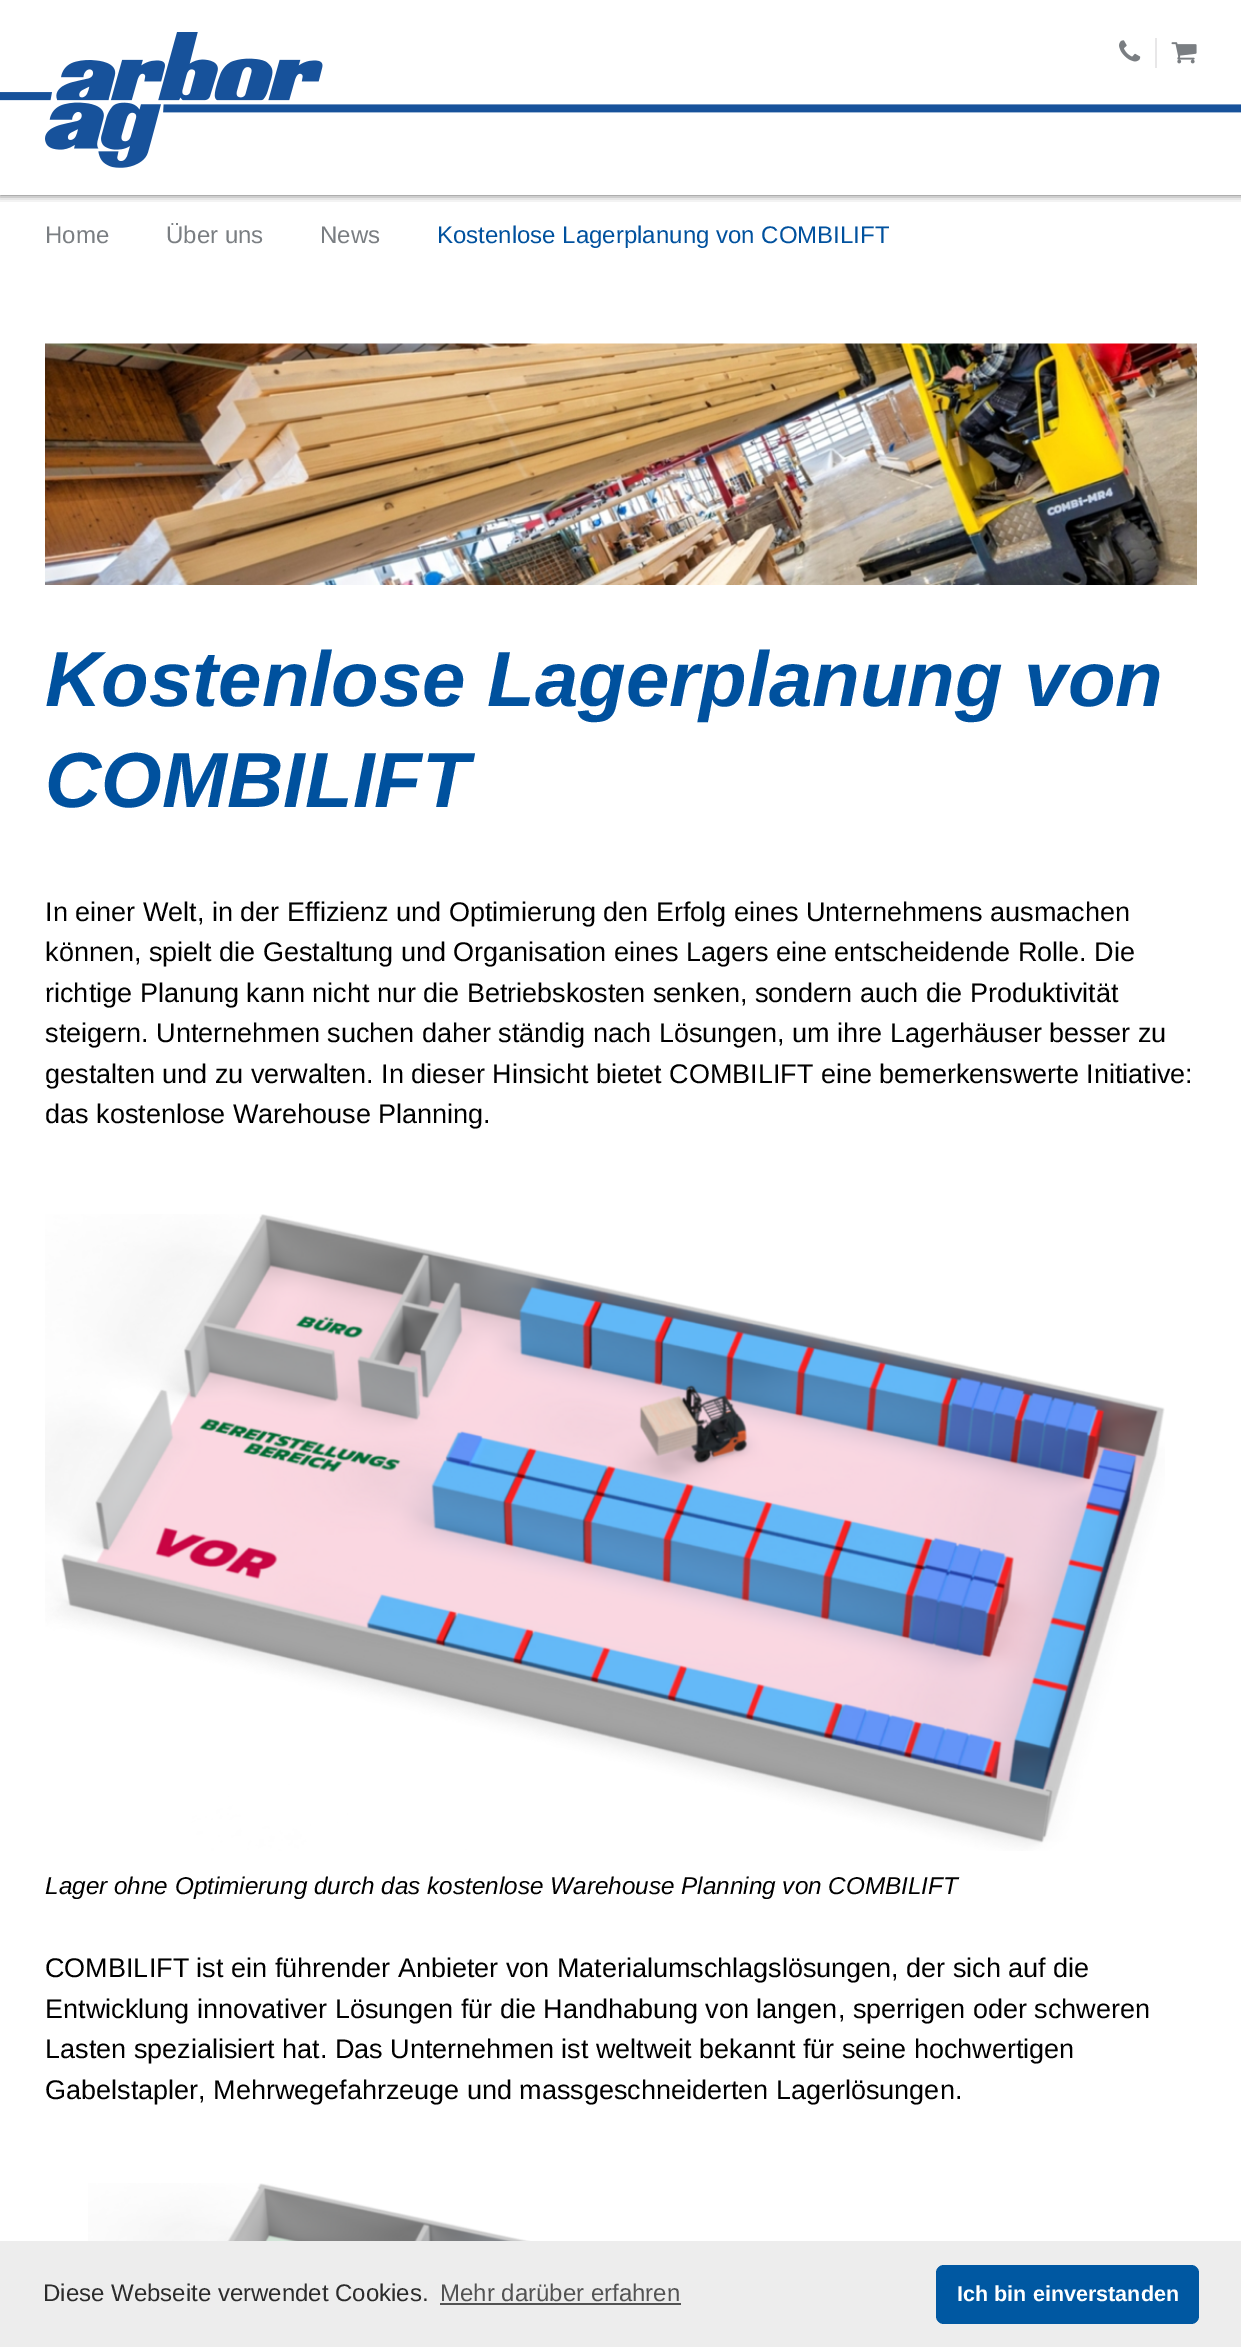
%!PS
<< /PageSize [1241 2347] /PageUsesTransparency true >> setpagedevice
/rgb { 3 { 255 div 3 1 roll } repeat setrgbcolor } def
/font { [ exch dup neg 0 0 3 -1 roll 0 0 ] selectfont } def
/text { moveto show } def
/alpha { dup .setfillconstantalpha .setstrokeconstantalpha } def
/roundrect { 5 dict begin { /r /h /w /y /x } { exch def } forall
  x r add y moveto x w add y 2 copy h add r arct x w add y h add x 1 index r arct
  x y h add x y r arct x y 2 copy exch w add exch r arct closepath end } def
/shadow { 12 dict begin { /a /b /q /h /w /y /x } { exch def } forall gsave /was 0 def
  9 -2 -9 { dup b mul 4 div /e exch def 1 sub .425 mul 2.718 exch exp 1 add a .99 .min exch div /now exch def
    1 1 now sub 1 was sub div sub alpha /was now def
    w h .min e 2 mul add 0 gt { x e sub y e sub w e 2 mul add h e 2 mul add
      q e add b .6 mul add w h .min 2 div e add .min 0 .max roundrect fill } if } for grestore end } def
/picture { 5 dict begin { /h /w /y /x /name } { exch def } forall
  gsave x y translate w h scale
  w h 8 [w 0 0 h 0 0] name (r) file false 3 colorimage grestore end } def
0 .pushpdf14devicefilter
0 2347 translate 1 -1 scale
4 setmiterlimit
255 255 255 rgb
0 0 1241 2347 rectfill
gsave
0 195 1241 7 rectclip
0 0 0 rgb
0 0 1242 195 0 4 0.65 shadow
grestore
(img_01.rgb) 0 32 1241 136 picture
232 231 232 rgb
1155 38 2 30 rectfill
(img_02.rgb) 1119 40 22 22 picture
(img_03.rgb) 1171 42 26 22 picture
(img_04.rgb) 45 343 1152 242 picture
(img_05.rgb) 45 1214 1120 637 picture
(img_06.rgb) 88 2183 443 58 picture
237 237 237 rgb
0 2241 1241 106 rectfill
83 83 83 rgb
440 2303 241 2 rectfill
0 88 162 rgb
936 2265 263 59 8 roundrect fill
/LiberationSans-Regular 24 font
122 126 130 rgb
(Home) 45 243 text
(Über uns) 166 243 text
(News) 320 243 text
0 81 158 rgb
(Kostenlose Lagerplanung von COMBILIFT) 437 243 text
/LiberationSans-BoldItalic 78 font
(Kostenlose Lagerplanung von) 45 706 text
(COMBILIFT) 45 807 text
/LiberationSans-Regular 27 font
0 0 0 rgb
(In einer Welt, in der Effizienz und Optimierung den Erfolg eines Unternehmens ausmachen) 45 921 text
(können, spielt die Gestaltung und Organisation eines Lagers eine entscheidende Rolle. Die) 45 961 text
(richtige Planung kann nicht nur die Betriebskosten senken, sondern auch die Produktivität) 45 1002 text
(steigern. Unternehmen suchen daher ständig nach Lösungen, um ihre Lagerhäuser besser zu) 45 1042 text
(gestalten und zu verwalten. In dieser Hinsicht bietet COMBILIFT eine bemerkenswerte Initiative:) 45 1083 text
(das kostenlose Warehouse Planning.) 45 1123 text
/LiberationSans-Italic 24.3 font
(Lager ohne Optimierung durch das kostenlose Warehouse Planning von COMBILIFT) 45 1894 text
/LiberationSans-Regular 27 font
(COMBILIFT ist ein führender Anbieter von Materialumschlagslösungen, der sich auf die) 45 1977 text
(Entwicklung innovativer Lösungen für die Handhabung von langen, sperrigen oder schweren) 45 2018 text
(Lasten spezialisiert hat. Das Unternehmen ist weltweit bekannt für seine hochwertigen) 45 2058 text
(Gabelstapler, Mehrwegefahrzeuge und massgeschneiderten Lagerlösungen.) 45 2099 text
/LiberationSans-Regular 24 font
44 44 44 rgb
(Diese Webseite verwendet Cookies.) 43 2301 text
83 83 83 rgb
(Mehr darüber erfahren) 440 2301 text
/LiberationSans-Bold 21.6 font
255 255 255 rgb
(Ich bin einverstanden) 957 2301 text
.poppdf14devicefilter showpage
